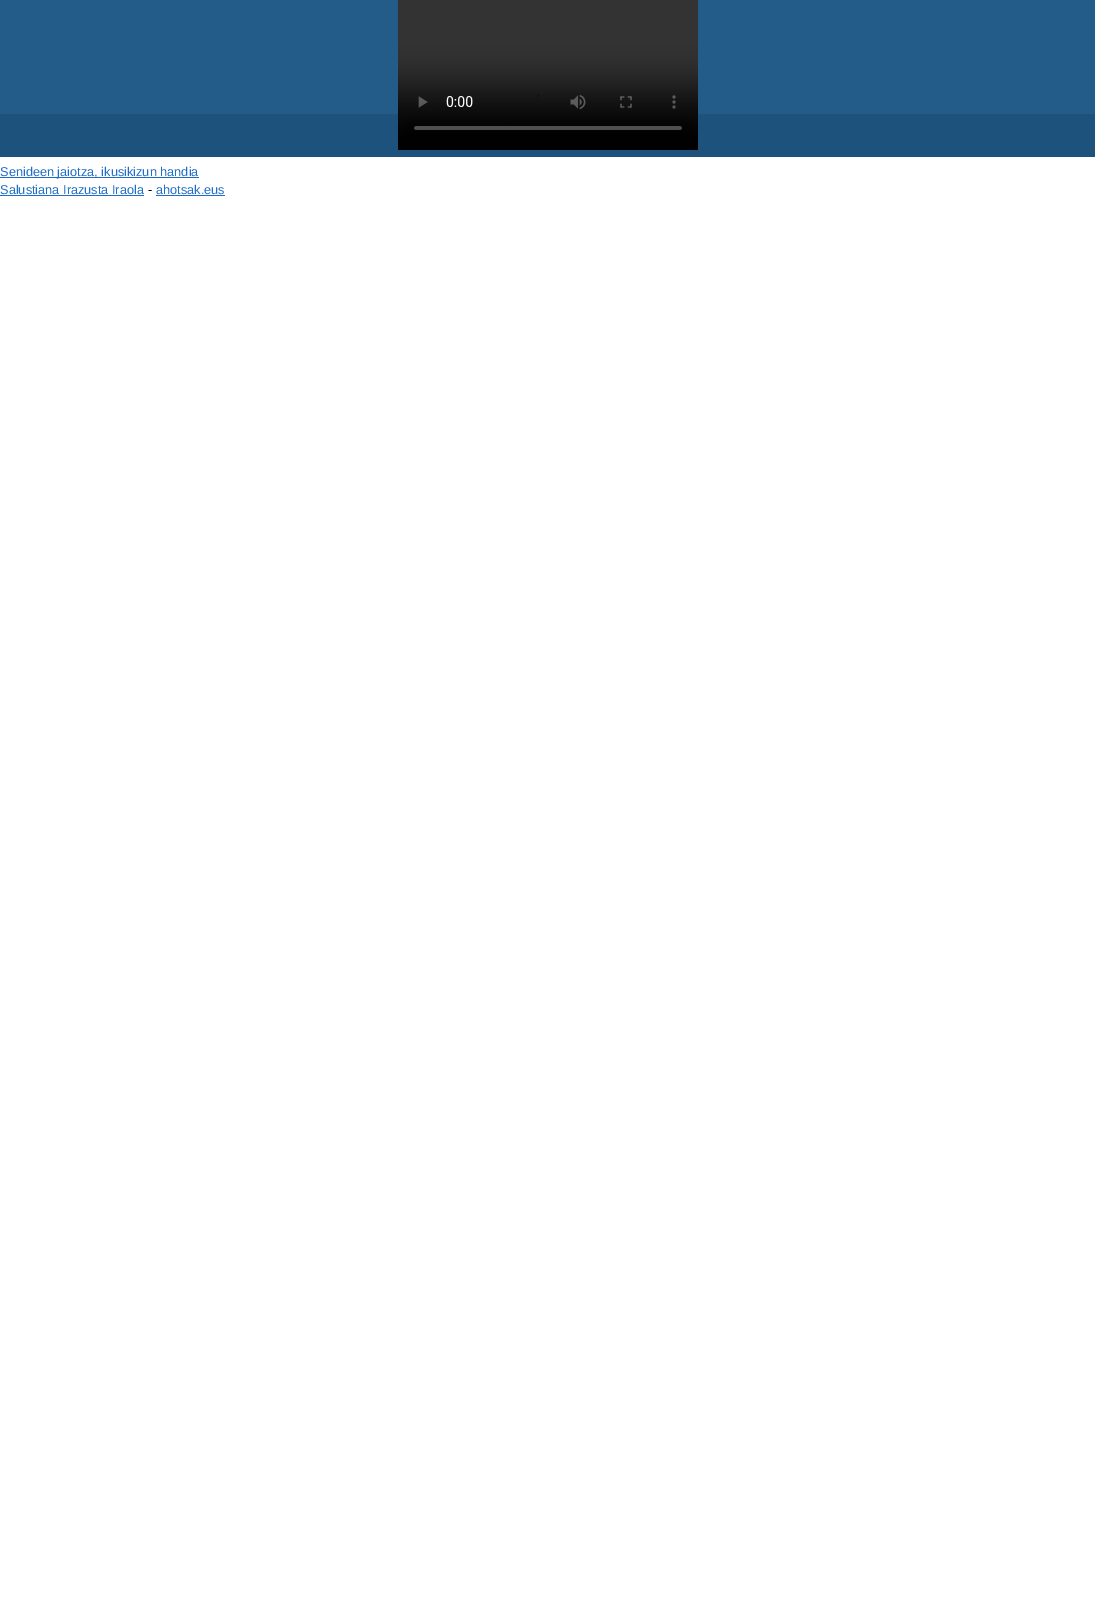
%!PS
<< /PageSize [1095 1599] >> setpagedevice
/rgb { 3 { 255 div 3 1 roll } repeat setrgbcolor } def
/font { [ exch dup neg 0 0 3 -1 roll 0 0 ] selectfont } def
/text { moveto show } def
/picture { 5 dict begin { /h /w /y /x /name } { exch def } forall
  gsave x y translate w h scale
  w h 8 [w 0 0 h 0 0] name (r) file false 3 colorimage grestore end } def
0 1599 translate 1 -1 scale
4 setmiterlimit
255 255 255 rgb
0 0 1095 1599 rectfill
(img_01.rgb) 0 0 1095 157 picture
(img_02.rgb) 398 0 300 150 picture
30 109 198 rgb
0 177 199 1 rectfill
0 195 144 1 rectfill
156 195 69 1 rectfill
/LiberationSans-Regular 12.75 font
(Senideen jaiotza, ikusikizun handia) 0 176 text
(Salustiana Irazusta Iraola) 0 194 text
0 0 0 rgb
(-) 148 194 text
30 109 198 rgb
(ahotsak.eus) 156 194 text
showpage
